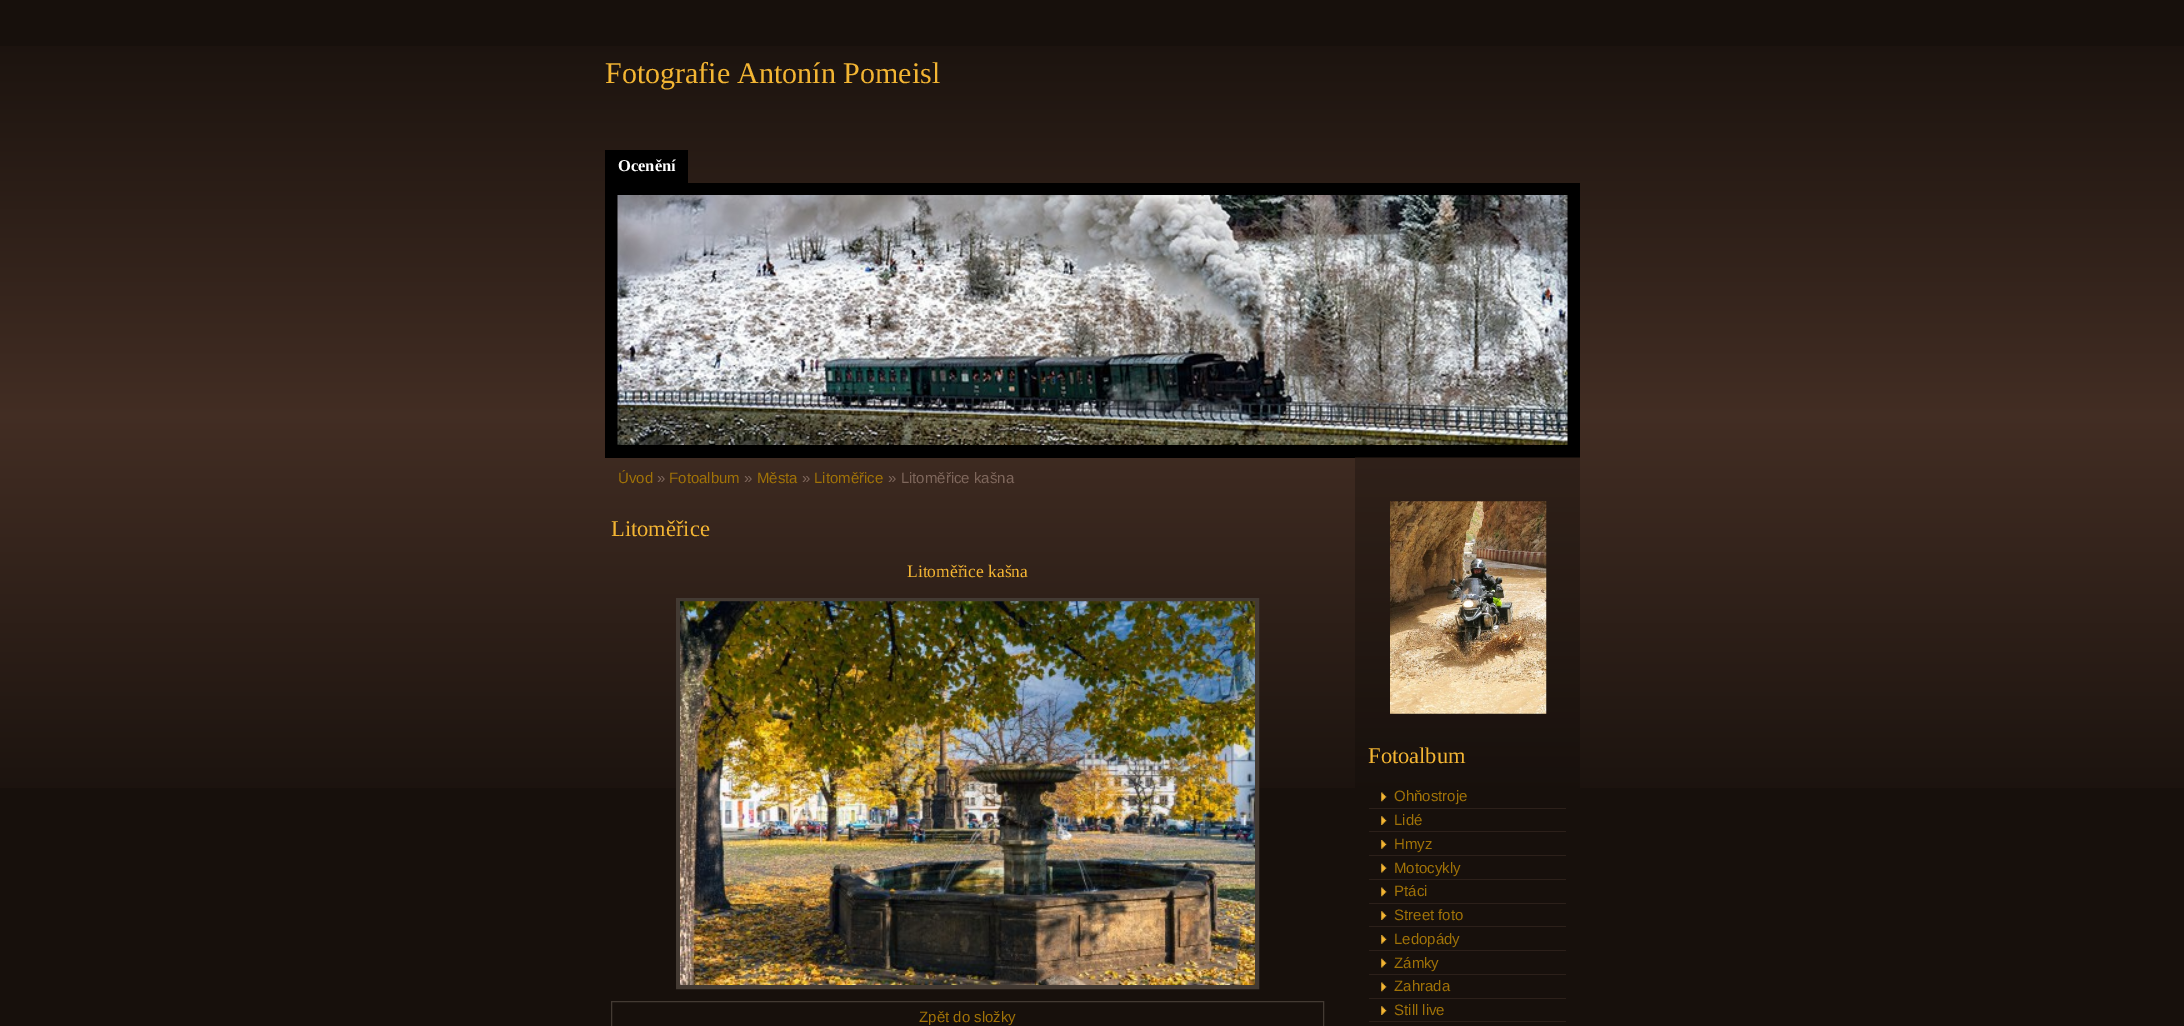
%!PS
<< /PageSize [2184 1026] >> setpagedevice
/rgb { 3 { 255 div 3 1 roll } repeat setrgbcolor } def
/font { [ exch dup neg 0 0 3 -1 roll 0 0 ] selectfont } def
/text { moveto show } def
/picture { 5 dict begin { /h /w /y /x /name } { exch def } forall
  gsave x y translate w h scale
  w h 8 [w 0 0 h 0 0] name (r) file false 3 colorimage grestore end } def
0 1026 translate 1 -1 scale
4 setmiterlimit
23 16 12 rgb
0 0 2184 1026 rectfill
(img_01.rgb) 0 46 2184 742 picture
0 0 0 rgb
605 183 975 275 rectfill
(img_02.rgb) 617 195 951 250 picture
605 150 83 33 rectfill
67 58 51 rgb
4 setlinewidth
678 600 579 387 rectstroke
(img_03.rgb) 680 601 575 384 picture
1 setlinewidth
611.5 1001.5 712 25 rectstroke
(img_04.rgb) 1355 457 225 331 picture
(img_05.rgb) 1390 501 157 213 picture
(img_06.rgb) 1381 792 6 10 picture
44 32 26 rgb
1369 808 197 1 rectfill
(img_07.rgb) 1381 816 6 9 picture
1369 831 197 1 rectfill
(img_08.rgb) 1381 840 6 9 picture
1369 855 197 1 rectfill
(img_09.rgb) 1381 863 6 10 picture
1369 879 197 1 rectfill
(img_06.rgb) 1381 887 6 10 picture
1369 903 197 1 rectfill
(img_07.rgb) 1381 911 6 9 picture
1369 926 197 1 rectfill
(img_08.rgb) 1381 935 6 9 picture
1369 950 197 1 rectfill
(img_09.rgb) 1381 958 6 10 picture
1369 974 197 1 rectfill
(img_06.rgb) 1381 982 6 10 picture
1369 998 197 1 rectfill
(img_07.rgb) 1381 1006 6 9 picture
1369 1021 197 1 rectfill
/LiberationSerif-Regular 30 font
243 181 51 rgb
(Fotografie Antonín Pomeisl) 605 83 text
/LiberationSerif-Bold 16.5 font
255 255 255 rgb
(Ocenění) 618 171 text
/LiberationSans-Regular 15 font
160 114 7 rgb
(Úvod) 618 483 text
127 103 92 rgb
(») 657 483 text
160 114 7 rgb
(Fotoalbum) 669 483 text
127 103 92 rgb
(») 744 483 text
160 114 7 rgb
(Města) 757 483 text
127 103 92 rgb
(») 802 483 text
160 114 7 rgb
(Litoměřice) 814 483 text
127 103 92 rgb
(» Litoměřice kašna) 888 483 text
/LiberationSerif-Regular 22.5 font
243 181 51 rgb
(Litoměřice) 611 536 text
/LiberationSerif-Regular 17.5 font
(Litoměřice kašna) 907 577 text
/LiberationSans-Regular 15 font
160 114 7 rgb
(Zpět do složky) 919 1022 text
/LiberationSerif-Regular 22.5 font
243 181 51 rgb
(Fotoalbum) 1368 763 text
/LiberationSans-Regular 15 font
160 114 7 rgb
(Ohňostroje) 1394 801 text
(Lidé) 1394 825 text
(Hmyz) 1394 849 text
(Motocykly) 1394 873 text
(Ptáci) 1394 896 text
(Street foto) 1394 920 text
(Ledopády) 1394 944 text
(Zámky) 1394 968 text
(Zahrada) 1394 991 text
(Still live) 1394 1015 text
showpage
